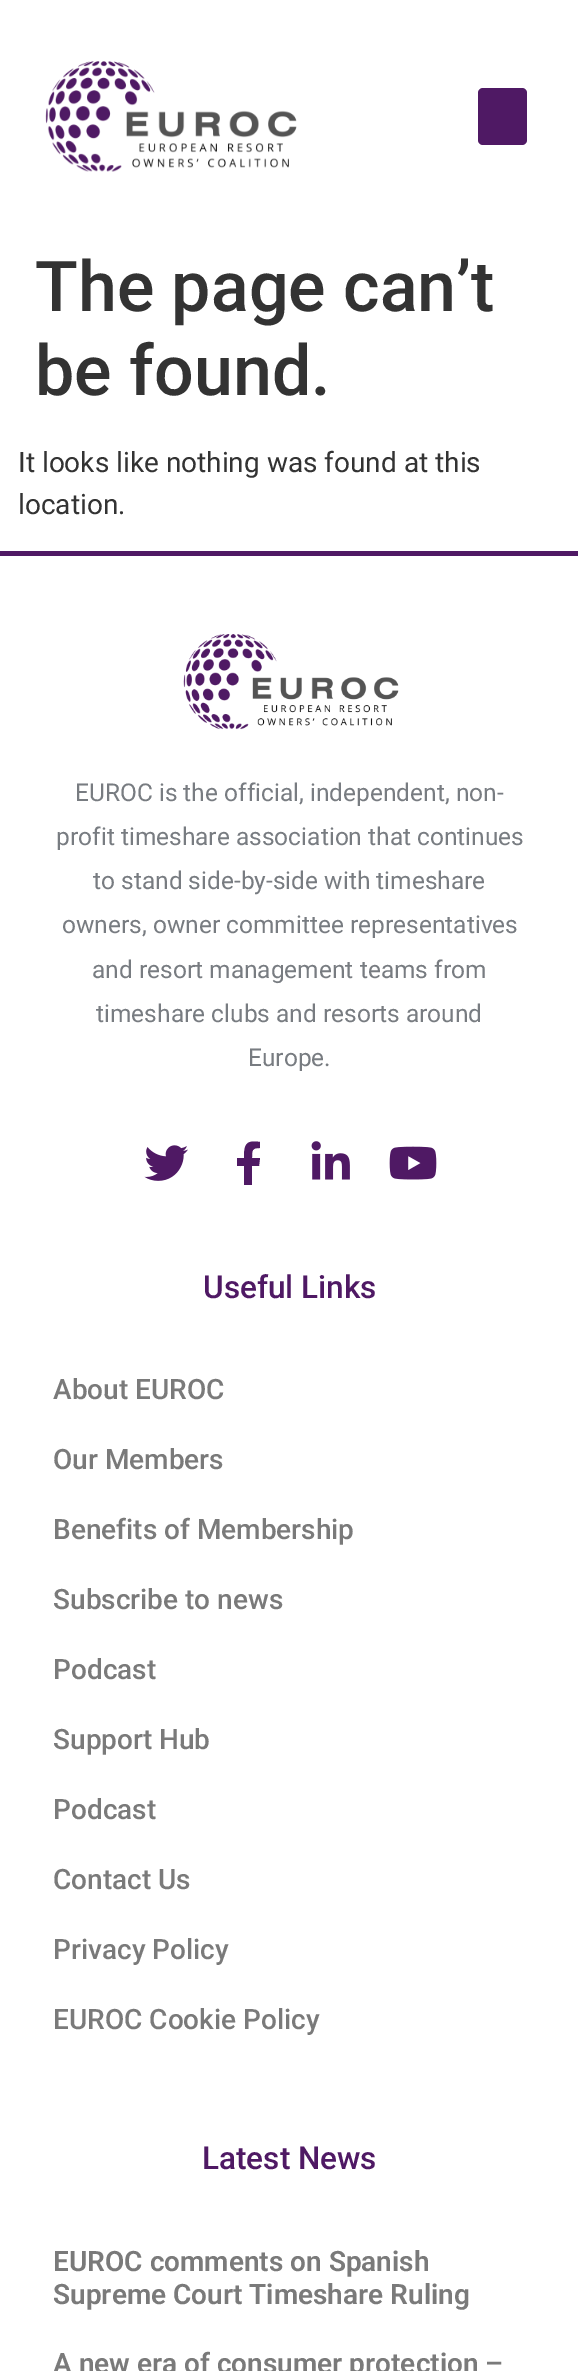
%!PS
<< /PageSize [578 2371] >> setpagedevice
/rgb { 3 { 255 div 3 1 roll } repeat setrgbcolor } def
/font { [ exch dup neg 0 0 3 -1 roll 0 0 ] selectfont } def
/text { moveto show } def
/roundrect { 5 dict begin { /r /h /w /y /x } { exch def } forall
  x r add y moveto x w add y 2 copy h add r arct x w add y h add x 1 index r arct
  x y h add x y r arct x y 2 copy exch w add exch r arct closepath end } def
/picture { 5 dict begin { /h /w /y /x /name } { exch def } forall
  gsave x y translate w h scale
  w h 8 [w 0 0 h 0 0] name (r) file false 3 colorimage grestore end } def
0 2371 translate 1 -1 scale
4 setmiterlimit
255 255 255 rgb
0 0 578 2371 rectfill
(img_01.rgb) 45 61 252 111 picture
79 25 100 rgb
478 88 49 57 5 roundrect fill
0 551 578 5 rectfill
(img_02.rgb) 183 634 216 96 picture
(img_03.rgb) 144 1145 44 36 picture
259 1166 moveto -7 0 rlineto 0 19 rlineto -8 0 rlineto 0 -19 rlineto -7 0 rlineto 0 -8 rlineto 7 0 rlineto 0 -14 2 -18 16 -16 rcurveto 0 6 rlineto -8 0 -8 2 -8 10 rcurveto 8 0 rlineto closepath fill
(img_04.rgb) 311 1141 39 39 picture
(img_05.rgb) 389 1146 48 34 picture
/Roboto-Medium 70 font
51 51 51 rgb
(The page can’t) 35 311 text
(be found.) 35 395 text
/Roboto-Regular 28 font
(It looks like nothing was found at this) 18 472 text
(location.) 18 514 text
/Roboto-Regular 24.5 font
120 124 129 rgb
(EUROC is the official, independent, non-) 75 801 text
(profit timeshare association that continues) 56 845 text
(to stand side-by-side with timeshare) 93 889 text
(owners, owner committee representatives) 62 933 text
(and resort management teams from) 92 978 text
(timeshare clubs and resorts around) 96 1022 text
(Europe.) 248 1066 text
/Roboto-Medium 31.5 font
79 25 100 rgb
(Useful Links) 203 1298 text
/Roboto-Medium 28 font
122 122 122 rgb
(About EUROC) 53 1399 text
(Our Members) 53 1469 text
(Benefits of Membership) 53 1539 text
(Subscribe to news) 53 1609 text
(Podcast) 53 1679 text
(Support Hub) 53 1749 text
(Podcast) 53 1819 text
(Contact Us) 53 1889 text
(Privacy Policy) 53 1959 text
(EUROC Cookie Policy) 53 2029 text
/Roboto-Medium 31.5 font
79 25 100 rgb
(Latest News) 202 2169 text
/Roboto-SemiBold 28 font
122 122 122 rgb
(EUROC comments on Spanish) 53 2271 text
(Supreme Court Timeshare Ruling) 53 2304 text
(A new era of consumer protection –) 53 2373 text
showpage
